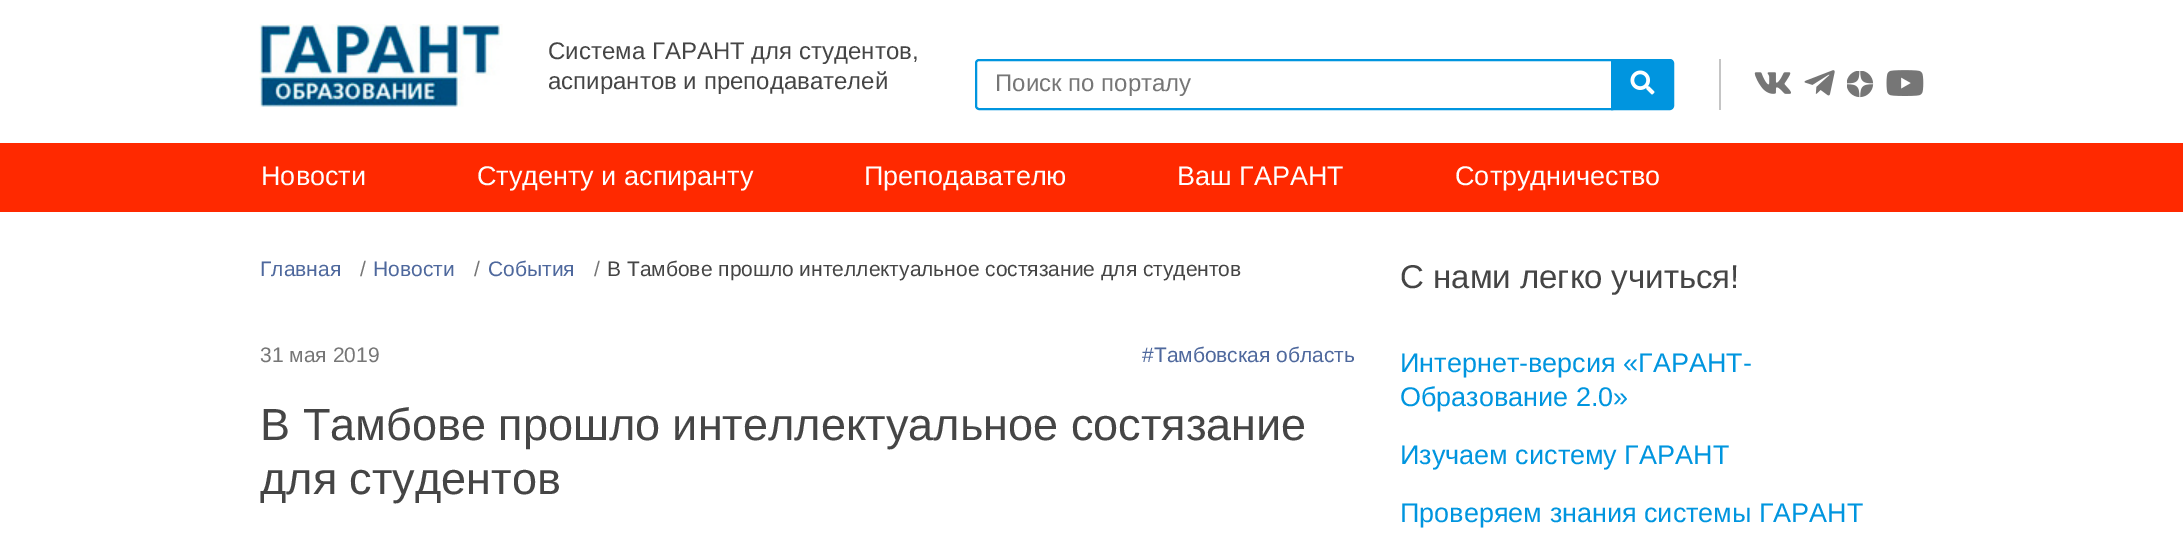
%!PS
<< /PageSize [2183 537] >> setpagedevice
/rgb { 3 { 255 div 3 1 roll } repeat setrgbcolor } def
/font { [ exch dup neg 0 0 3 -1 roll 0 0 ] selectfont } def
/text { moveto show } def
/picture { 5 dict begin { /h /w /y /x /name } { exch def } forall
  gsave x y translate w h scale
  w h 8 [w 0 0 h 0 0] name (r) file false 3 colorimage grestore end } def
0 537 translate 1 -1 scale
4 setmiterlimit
255 255 255 rgb
0 0 2183 537 rectfill
(img_01.rgb) 259 24 244 83 picture
0 149 223 rgb
2 setlinewidth
979 60 moveto 633 0 rlineto 0 49 rlineto -633 0 rlineto -1.5 0 -3 -1.5 -3 -3 rcurveto 0 -43 rlineto 0 -1.5 1.5 -3 3 -3 rcurveto closepath stroke
1612 60 moveto 58 0 rlineto 1.5 0 3 1.5 3 3 rcurveto 0 43 rlineto 0 1.5 -1.5 3 -3 3 rcurveto -58 0 rlineto closepath gsave fill grestore
stroke
(img_02.rgb) 1630 70 25 25 picture
197 197 197 rgb
1719 59 2 51 rectfill
(img_03.rgb) 1754 72 37 22 picture
(img_04.rgb) 1804 70 31 26 picture
(img_05.rgb) 1847 71 27 27 picture
(img_06.rgb) 1886 70 38 26 picture
255 41 0 rgb
0 143 2183 69 rectfill
/LiberationSans-Regular 24 font
69 69 69 rgb
(Система ГАРАНТ для студентов,) 548 59 text
(аспирантов и преподавателей) 548 89 text
118 118 118 rgb
(Поиск по порталу) 995 91 text
/LiberationSans-Regular 27 font
255 255 255 rgb
(Новости) 261 185 text
(Студенту и аспиранту) 477 185 text
(Преподавателю) 864 185 text
(Ваш ГАРАНТ) 1177 185 text
(Сотрудничество) 1455 185 text
/LiberationSans-Regular 21 font
78 104 157 rgb
(Главная) 260 276 text
118 118 118 rgb
(/) 360 276 text
78 104 157 rgb
(Новости) 373 276 text
118 118 118 rgb
(/) 474 276 text
78 104 157 rgb
(События) 488 276 text
118 118 118 rgb
(/) 594 276 text
69 69 69 rgb
(В Тамбове прошло интеллектуальное состязание для студентов) 607 276 text
118 118 118 rgb
(31 мая 2019) 260 362 text
78 104 157 rgb
(#Тамбовская область) 1142 362 text
/LiberationSans-Regular 45 font
69 69 69 rgb
(В Тамбове прошло интеллектуальное состязание) 260 440 text
(для студентов) 260 494 text
/LiberationSans-Regular 33 font
(С нами легко учиться!) 1400 288 text
/LiberationSans-Regular 27 font
0 149 223 rgb
(Интернет-версия «ГАРАНТ-) 1400 372 text
(Образование 2.0») 1400 406 text
(Изучаем систему ГАРАНТ) 1400 464 text
(Проверяем знания системы ГАРАНТ) 1400 522 text
showpage
